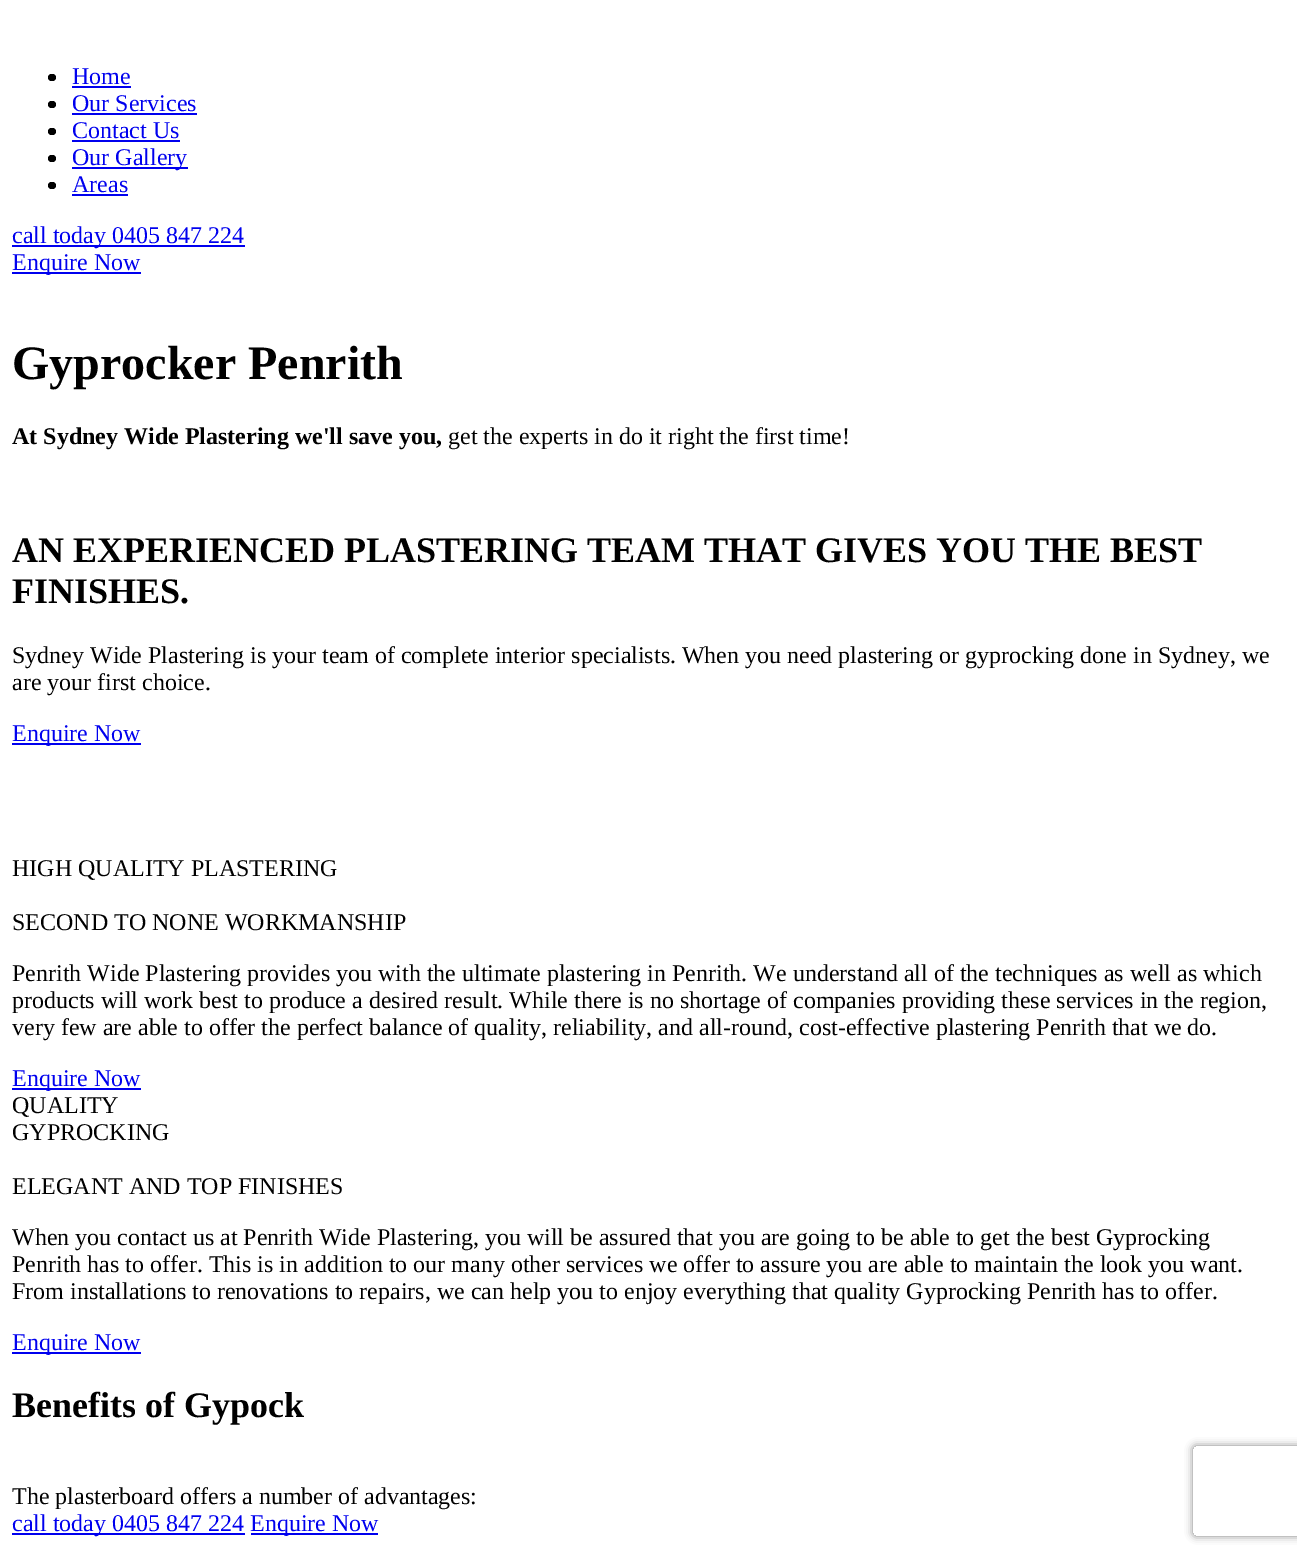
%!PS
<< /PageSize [1297 1556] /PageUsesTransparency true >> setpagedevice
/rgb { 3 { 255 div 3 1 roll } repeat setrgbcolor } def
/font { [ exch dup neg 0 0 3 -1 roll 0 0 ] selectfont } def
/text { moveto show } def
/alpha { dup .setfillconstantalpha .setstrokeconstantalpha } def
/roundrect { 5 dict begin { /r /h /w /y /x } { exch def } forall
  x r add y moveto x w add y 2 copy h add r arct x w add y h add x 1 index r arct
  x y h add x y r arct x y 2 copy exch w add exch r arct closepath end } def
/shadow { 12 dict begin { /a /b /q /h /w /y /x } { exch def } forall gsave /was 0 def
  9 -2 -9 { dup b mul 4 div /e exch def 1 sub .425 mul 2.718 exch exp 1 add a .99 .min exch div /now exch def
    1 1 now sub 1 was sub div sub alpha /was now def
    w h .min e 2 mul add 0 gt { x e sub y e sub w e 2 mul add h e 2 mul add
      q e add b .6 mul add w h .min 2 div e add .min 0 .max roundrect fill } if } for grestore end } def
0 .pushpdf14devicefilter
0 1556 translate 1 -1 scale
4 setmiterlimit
255 255 255 rgb
0 0 1297 1556 rectfill
0 0 0 rgb
48 74 8 7 3.5 roundrect fill
0 0 238 rgb
72 86 59 2 rectfill
0 0 0 rgb
48 101 8 7 3.5 roundrect fill
0 0 238 rgb
72 113 125 2 rectfill
0 0 0 rgb
48 128 8 7 3.5 roundrect fill
0 0 238 rgb
72 140 108 2 rectfill
0 0 0 rgb
48 155 8 7 3.5 roundrect fill
0 0 238 rgb
72 167 116 2 rectfill
0 0 0 rgb
48 182 8 7 3.5 roundrect fill
0 0 238 rgb
72 194 56 2 rectfill
12 245 233 2 rectfill
12 272 129 2 rectfill
12 743 129 2 rectfill
12 1088 129 2 rectfill
12 1352 129 2 rectfill
12 1533 233 2 rectfill
251 1533 127 2 rectfill
gsave
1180 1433 moveto 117 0 rlineto 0 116 rlineto -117 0 rlineto closepath 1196 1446 moveto 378 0 rlineto 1.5 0 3 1.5 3 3 rcurveto 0 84 rlineto 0 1.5 -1.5 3 -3 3 rcurveto -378 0 rlineto -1.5 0 -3 -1.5 -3 -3 rcurveto 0 -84 rlineto 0 -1.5 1.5 -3 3 -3 rcurveto closepath eoclip newpath
128 128 128 rgb
1193 1446 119 90 3 4 1 shadow
grestore
/LiberationSerif-Regular 24 font
(Home) 72 84 text
(Our Services) 72 111 text
(Contact Us) 72 138 text
(Our Gallery) 72 165 text
(Areas) 72 192 text
(call today 0405 847 224) 12 243 text
(Enquire Now) 12 270 text
/LiberationSerif-Bold 48 font
0 0 0 rgb
(Gyprocker Penrith) 12 379 text
/LiberationSerif-Bold 24 font
(At Sydney Wide Plastering we'll save you,) 12 444 text
/LiberationSerif-Regular 24 font
(get the experts in do it right the first time!) 448 444 text
/LiberationSerif-Bold 36 font
(AN EXPERIENCED PLASTERING TEAM THAT GIVES YOU THE BEST) 12 562 text
(FINISHES.) 12 603 text
/LiberationSerif-Regular 24 font
(Sydney Wide Plastering is your team of complete interior specialists. When you need plastering or gyprocking done in Sydney, we) 12 663 text
(are your first choice.) 12 690 text
0 0 238 rgb
(Enquire Now) 12 741 text
0 0 0 rgb
(HIGH QUALITY PLASTERING) 12 876 text
(SECOND TO NONE WORKMANSHIP) 12 930 text
(Penrith Wide Plastering provides you with the ultimate plastering in Penrith. We understand all of the techniques as well as which) 12 981 text
(products will work best to produce a desired result. While there is no shortage of companies providing these services in the region,) 12 1008 text
(very few are able to offer the perfect balance of quality, reliability, and all-round, cost-effective plastering Penrith that we do.) 12 1035 text
0 0 238 rgb
(Enquire Now) 12 1086 text
0 0 0 rgb
(QUALITY) 12 1113 text
(GYPROCKING) 12 1140 text
(ELEGANT AND TOP FINISHES) 12 1194 text
(When you contact us at Penrith Wide Plastering, you will be assured that you are going to be able to get the best Gyprocking) 12 1245 text
(Penrith has to offer. This is in addition to our many other services we offer to assure you are able to maintain the look you want.) 12 1272 text
(From installations to renovations to repairs, we can help you to enjoy everything that quality Gyprocking Penrith has to offer.) 12 1299 text
0 0 238 rgb
(Enquire Now) 12 1350 text
/LiberationSerif-Bold 36 font
0 0 0 rgb
(Benefits of Gypock) 12 1417 text
/LiberationSerif-Regular 24 font
(The plasterboard offers a number of advantages:) 12 1504 text
0 0 238 rgb
(call today 0405 847 224) 12 1531 text
(Enquire Now) 250 1531 text
.poppdf14devicefilter showpage
